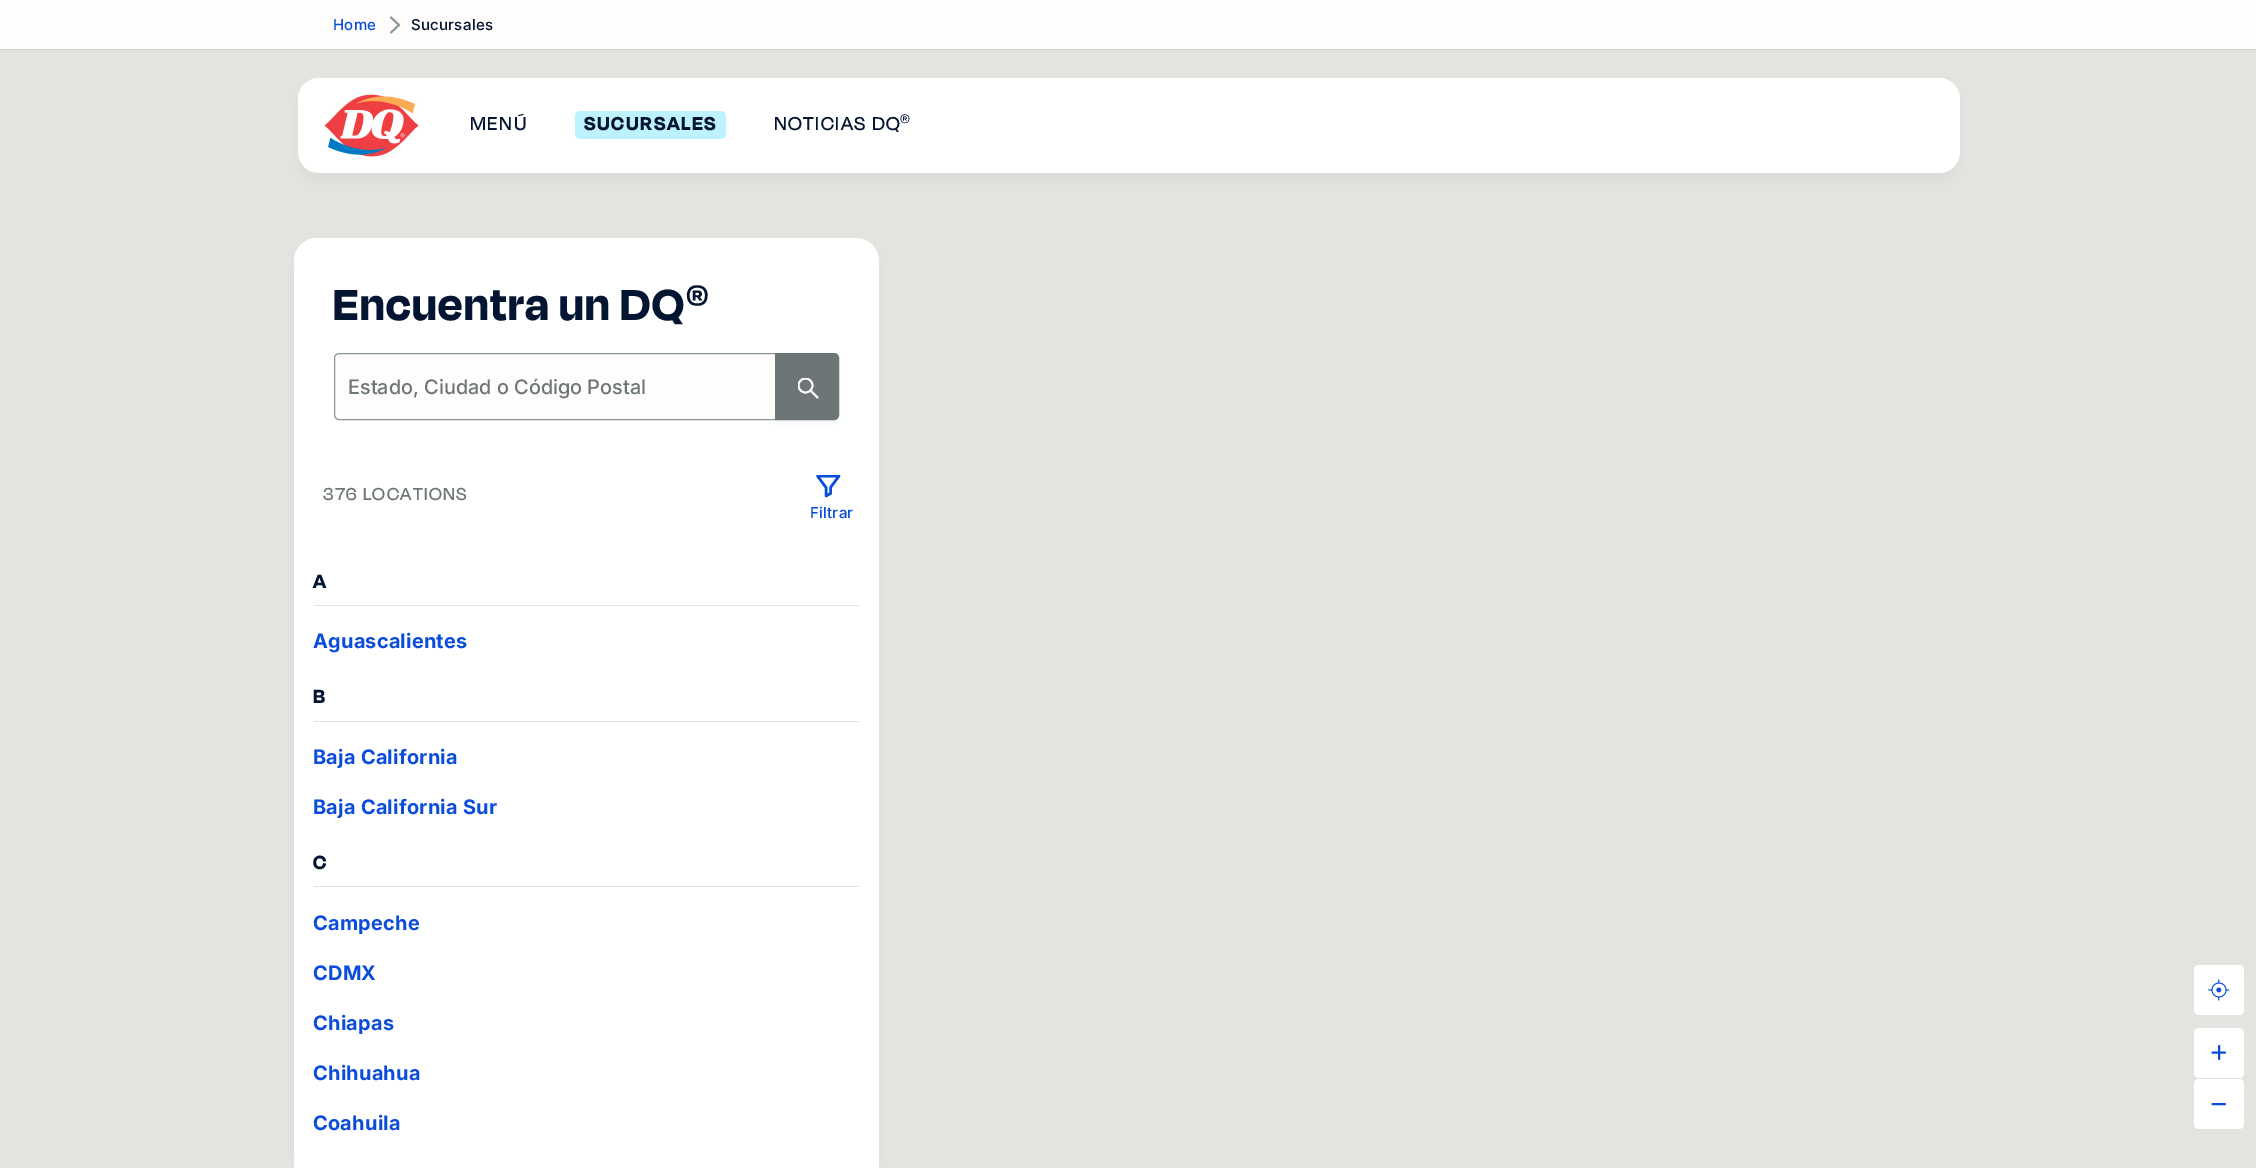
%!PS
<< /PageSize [2256 1168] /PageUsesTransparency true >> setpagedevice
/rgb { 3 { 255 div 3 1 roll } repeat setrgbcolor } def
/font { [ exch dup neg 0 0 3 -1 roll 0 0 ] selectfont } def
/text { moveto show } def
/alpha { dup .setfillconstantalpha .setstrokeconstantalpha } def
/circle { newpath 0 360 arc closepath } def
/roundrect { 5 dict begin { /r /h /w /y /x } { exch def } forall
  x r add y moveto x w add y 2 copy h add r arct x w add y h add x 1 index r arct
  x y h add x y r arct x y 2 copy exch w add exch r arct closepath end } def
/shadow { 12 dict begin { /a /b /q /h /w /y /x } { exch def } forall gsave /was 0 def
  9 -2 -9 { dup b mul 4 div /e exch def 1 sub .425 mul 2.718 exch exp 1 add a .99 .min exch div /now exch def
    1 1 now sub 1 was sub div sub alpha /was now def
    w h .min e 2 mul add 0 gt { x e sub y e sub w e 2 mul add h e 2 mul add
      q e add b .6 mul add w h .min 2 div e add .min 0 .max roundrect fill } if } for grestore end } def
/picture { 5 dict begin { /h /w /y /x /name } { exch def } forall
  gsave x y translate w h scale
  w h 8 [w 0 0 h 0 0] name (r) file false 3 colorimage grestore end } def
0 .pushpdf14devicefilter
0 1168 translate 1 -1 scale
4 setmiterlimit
254 253 251 rgb
0 0 2256 1168 rectfill
205 213 215 rgb
0 49 2256 1 rectfill
139 150 152 rgb
1.9 setlinewidth
1 setlinecap
1 setlinejoin
391 17.5 moveto 8 7.5 rlineto -8 7.5 rlineto stroke
229 227 223 rgb
0 50 2256 1118 rectfill
170 183 185 rgb
298 86 1662 95 21 5 0.2 shadow
255 255 255 rgb
298 78 1662 95 21 roundrect fill
(img_01.rgb) 324 94 95 63 picture
190 242 254 rgb
575 111 151 28 5 roundrect fill
255 255 255 rgb
2194 965 50 50 5 roundrect fill
(img_02.rgb) 2208 979 22 22 picture
2194 1028 50 50 5 roundrect fill
2194 1079 50 50 5 roundrect fill
11 76 219 rgb
2225 1052.5 moveto -12.5 0 rlineto 2219 1059 moveto 0 -13 rlineto 2225 1104 moveto -12.5 0 rlineto stroke
170 183 185 rgb
294 246 585 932 23 5 0.2 shadow
255 255 255 rgb
317 238 moveto 539 0 rlineto 12.5 0 23 10.5 23 23 rcurveto 0 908 rlineto -585 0 rlineto 0 -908 rlineto 0 -12.5 10.5 -23 23 -23 rcurveto closepath fill
254 253 251 rgb
334.5 353.5 444 66 4.5 roundrect gsave fill grestore
139 150 152 rgb
1 setlinewidth
0 setlinecap
0 setlinejoin
stroke
205 213 215 rgb
775 356 64 68 5 3 0.2 shadow
109 117 119 rgb
776.5 354.5 moveto 57.5 0 rlineto 2 0 3.5 1.5 3.5 3.5 rcurveto 0 57 rlineto 0 2 -1.5 3.5 -3.5 3.5 rcurveto -57.5 0 rlineto closepath gsave fill grestore
3 setlinewidth
stroke
254 253 251 rgb
1.9 setlinewidth
1 setlinecap
1 setlinejoin
811.5 391.5 moveto 6 6 rlineto stroke
gsave
798 378 21 21 rectclip
0 setlinecap
0 setlinejoin
805.5 385.5 7 circle stroke
grestore
gsave
816 475 25 23 rectclip
11 76 219 rgb
2.5 setlinewidth
839 476 moveto -21.5 0 rlineto 8.5 11.5 rlineto 0 8.5 rlineto 4.5 -2.5 rlineto 0 -6 rlineto closepath stroke
grestore
221 230 233 rgb
314 605 545 1 rectfill
314 721 545 1 rectfill
314 886 545 1 rectfill
/Inter-Medium 15 font
11 76 219 rgb
333 30 moveto 0.25 0 (Home) ashow
4 21 49 rgb
411 30 moveto 0.25 0 (Sucursales) ashow
/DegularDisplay-Medium 21.5 font
470 130 moveto 1.5 0 (MENÚ) ashow
/DegularDisplay-Bold 21.5 font
584 130 moveto 1.5 0 (SUCURSALES) ashow
/DegularDisplay-Medium 21.5 font
774 130 moveto 1.5 0 (NOTICIAS DQ) ashow
/DegularDisplay-Medium 11 font
900 122 moveto 1.5 0 (®) ashow
/DegularDisplay-Bold 50 font
333 320 moveto 1.5 0 (Encuentra un DQ) ashow
/DegularDisplay-Bold 25 font
686 303 moveto 1.5 0 (®) ashow
/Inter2-Medium 20 font
109 117 119 rgb
(Estado, Ciudad o Código Postal) 348 394 text
/DegularDisplay-Medium 20 font
323 500 moveto 1.4 0 (376 LOCATIONS) ashow
/Inter-Medium 15 font
11 76 219 rgb
810 518 moveto 0.25 0 (Filtrar) ashow
/DegularDisplay-Bold 22 font
4 21 49 rgb
313 588 moveto 2 0 (A) ashow
/Inter-Bold 20 font
11 76 219 rgb
313 648 moveto 0.25 0 (Aguascalientes) ashow
/DegularDisplay-Bold 22 font
4 21 49 rgb
313 703 moveto 2 0 (B) ashow
/Inter-Bold 20 font
11 76 219 rgb
313 764 moveto 0.25 0 (Baja California) ashow
313 814 moveto 0.25 0 (Baja California Sur) ashow
/DegularDisplay-Bold 22 font
4 21 49 rgb
313 869 moveto 2 0 (C) ashow
/Inter-Bold 20 font
11 76 219 rgb
313 930 moveto 0.25 0 (Campeche) ashow
313 980 moveto 0.25 0 (CDMX) ashow
313 1030 moveto 0.25 0 (Chiapas) ashow
313 1080 moveto 0.25 0 (Chihuahua) ashow
313 1130 moveto 0.25 0 (Coahuila) ashow
.poppdf14devicefilter showpage
